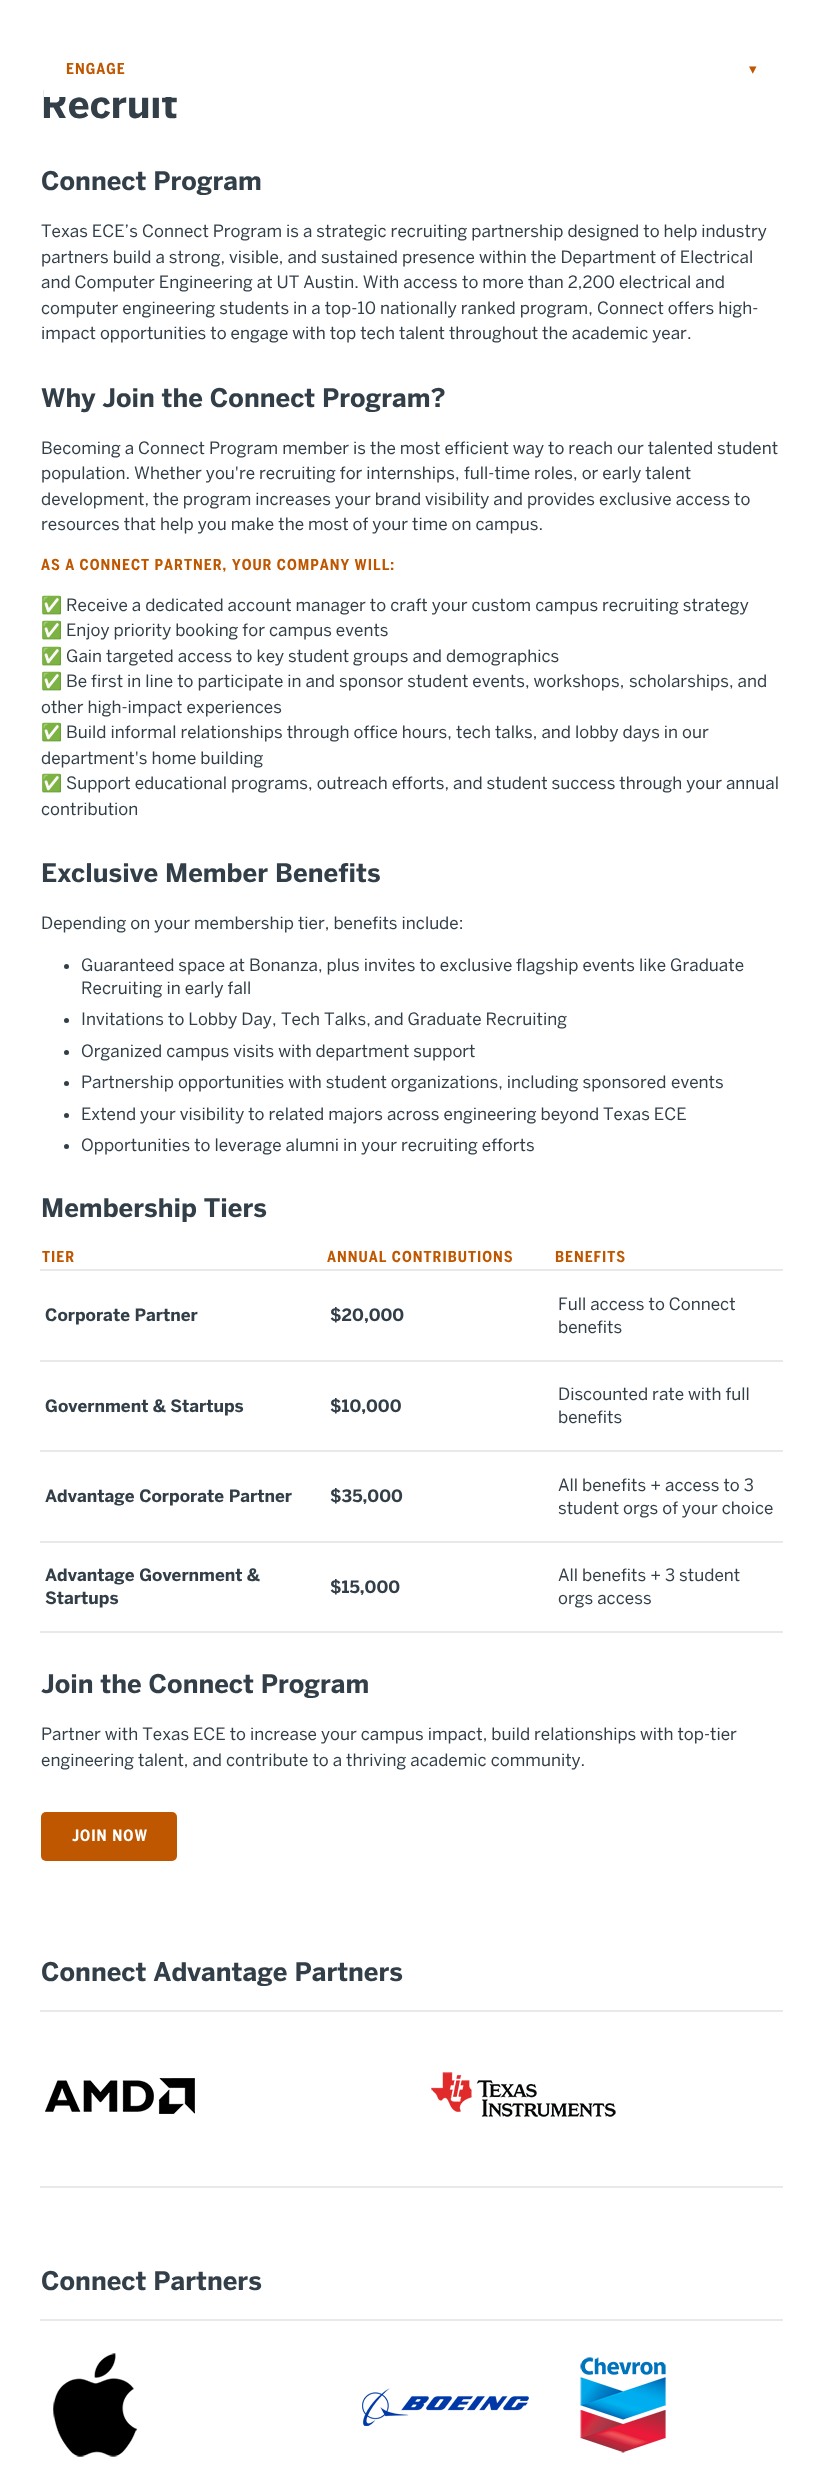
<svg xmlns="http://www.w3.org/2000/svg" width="823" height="2489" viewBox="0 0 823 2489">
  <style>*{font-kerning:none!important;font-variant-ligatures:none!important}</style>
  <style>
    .t1 { font: bold 38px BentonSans; fill: #333f48; }
    .t2 { font: bold 15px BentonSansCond; letter-spacing: 1px; fill: #bf5700; }
    .t3 { font: 15px DejaVu Sans; letter-spacing: 1px; fill: #bf5700; }
    .t4 { font: bold 25.5px BentonSans; fill: #333f48; }
    .t5 { font: 17px BentonSans; fill: #333f48; }
    .t6 { font: 17px Noto Color Emoji; fill: #333f48; }
    .t7 { font: bold 17px BentonSans; fill: #333f48; }
    .t8 { font: bold 15.5px BentonSansCond; letter-spacing: 1px; fill: #fff; }
  </style>
  <rect width="100%" height="100%" fill="#fff"/>
  <text x="41" y="118" class="t1">Recruit</text>
  <rect x="44" y="89" width="129" height="8" fill="#fff"/>
  <text x="66" y="74" class="t2">ENGAGE</text>
  <text x="749" y="74" class="t3">▾</text>
  <text x="41" y="190" class="t4">Connect Program</text>
  <text x="41" y="237" class="t5">Texas ECE’s</text>
  <text x="142" y="237" class="t5">Connect Program is a strategic recruiting partnership designed to help industry</text>
  <text x="41" y="263" class="t5">partners build a strong, visible, and sustained presence</text>
  <text x="479" y="263" class="t5">within the Department of Electrical</text>
  <text x="41" y="288" class="t5">and Computer Engineering at UT Austin. With access</text>
  <text x="462" y="288" class="t5">to more than 2,200 electrical and</text>
  <text x="41" y="314" class="t5">computer engineering students in a top-10 nationally ranked program,</text>
  <text x="597" y="314" class="t5">Connect offers high-</text>
  <text x="41" y="339" class="t5">impact opportunities to engage with top tech talent throughout the academic year.</text>
  <text x="41" y="407" class="t4">Why Join the Connect Program?</text>
  <text x="41" y="454" class="t5">Becoming a Connect Program member is the most efficient way to reach</text>
  <text x="617" y="454" class="t5">our talented student</text>
  <text x="41" y="479" class="t5">population. Whether you're recruiting for internships,</text>
  <text x="464" y="479" class="t5">full-time roles, or early talent</text>
  <text x="41" y="505" class="t5">development, the program increases your brand</text>
  <text x="425" y="505" class="t5">visibility and provides exclusive access</text>
  <text x="734" y="505" class="t5">to</text>
  <text x="41" y="530" class="t5">resources that help you make the most of your</text>
  <text x="412" y="530" class="t5">time on campus.</text>
  <text x="41" y="570" class="t2">AS A CONNECT PARTNER,</text>
  <text x="232" y="570" class="t2">YOUR COMPANY WILL:</text>
  <text x="41" y="611" class="t6">✅</text>
  <text x="66" y="611" class="t5">Receive a dedicated account manager to craft your custom campus</text>
  <text x="602" y="611" class="t5">recruiting strategy</text>
  <text x="41" y="636" class="t6">✅</text>
  <text x="66" y="636" class="t5">Enjoy priority booking for campus events</text>
  <text x="41" y="662" class="t6">✅</text>
  <text x="66" y="662" class="t5">Gain targeted access to key student groups and demographics</text>
  <text x="41" y="687" class="t6">✅</text>
  <text x="66" y="687" class="t5">Be first in line to participate in and sponsor student events, workshops,</text>
  <text x="629" y="687" class="t5">scholarships, and</text>
  <text x="41" y="713" class="t5">other high-impact experiences</text>
  <text x="41" y="738" class="t6">✅</text>
  <text x="66" y="738" class="t5">Build informal relationships through office hours,</text>
  <text x="456" y="738" class="t5">tech talks, and lobby days in our</text>
  <text x="41" y="764" class="t5">department's home building</text>
  <text x="41" y="789" class="t6">✅</text>
  <text x="66" y="789" class="t5">Support educational programs, outreach efforts,</text>
  <text x="453" y="789" class="t5">and student success through your annual</text>
  <text x="41" y="815" class="t5">contribution</text>
  <text x="41" y="882" class="t4">Exclusive Member Benefits</text>
  <text x="41" y="929" class="t5">Depending on your membership tier, benefits include:</text>
  <circle cx="66.5" cy="966.5" r="2.5" fill="#333f48"/>
  <text x="81" y="971" class="t5">Guaranteed space at Bonanza, plus invites to exclusive</text>
  <text x="516" y="971" class="t5">flagship events like Graduate</text>
  <text x="81" y="994" class="t5">Recruiting in early fall</text>
  <circle cx="66.5" cy="1020.5" r="2.5" fill="#333f48"/>
  <text x="81" y="1025" class="t5">Invitations to Lobby Day,</text>
  <text x="281" y="1025" class="t5">Tech Talks,</text>
  <text x="374" y="1025" class="t5">and Graduate Recruiting</text>
  <circle cx="66.5" cy="1052.5" r="2.5" fill="#333f48"/>
  <text x="81" y="1057" class="t5">Organized campus visits with department support</text>
  <circle cx="66.5" cy="1083.5" r="2.5" fill="#333f48"/>
  <text x="81" y="1088" class="t5">Partnership opportunities with student organizations, including sponsored</text>
  <text x="671" y="1088" class="t5">events</text>
  <circle cx="66.5" cy="1115.5" r="2.5" fill="#333f48"/>
  <text x="81" y="1120" class="t5">Extend your visibility to related majors across engineering beyond</text>
  <text x="603" y="1120" class="t5">Texas ECE</text>
  <circle cx="66.5" cy="1146.5" r="2.5" fill="#333f48"/>
  <text x="81" y="1151" class="t5">Opportunities to leverage alumni in your recruiting efforts</text>
  <text x="41" y="1217" class="t4">Membership Tiers</text>
  <text x="42" y="1262" class="t2">TIER</text>
  <text x="327" y="1262" class="t2">ANNUAL CONTRIBUTIONS</text>
  <text x="555" y="1262" class="t2">BENEFITS</text>
  <rect x="40" y="1269" width="743" height="2" fill="#e8e9e9"/>
  <rect x="40" y="1631" width="743" height="2" fill="#e8e9e9"/>
  <text x="45" y="1321" class="t7">Corporate Partner</text>
  <text x="330" y="1321" class="t7">$20,000</text>
  <text x="558" y="1310" class="t5">Full access to Connect</text>
  <text x="558" y="1333" class="t5">benefits</text>
  <rect x="40" y="1360" width="743" height="2" fill="#e8e9e9"/>
  <text x="45" y="1412" class="t7">Government &amp; Startups</text>
  <text x="330" y="1412" class="t7">$10,000</text>
  <text x="558" y="1400" class="t5">Discounted rate with full</text>
  <text x="558" y="1423" class="t5">benefits</text>
  <rect x="40" y="1450" width="743" height="2" fill="#e8e9e9"/>
  <text x="45" y="1502" class="t7">Advantage Corporate Partner</text>
  <text x="330" y="1502" class="t7">$35,000</text>
  <text x="558" y="1491" class="t5">All benefits + access to 3</text>
  <text x="558" y="1514" class="t5">student orgs of your choice</text>
  <rect x="40" y="1541" width="743" height="2" fill="#e8e9e9"/>
  <text x="45" y="1581" class="t7">Advantage Government &amp;</text>
  <text x="45" y="1604" class="t7">Startups</text>
  <text x="330" y="1593" class="t7">$15,000</text>
  <text x="558" y="1581" class="t5">All benefits + 3 student</text>
  <text x="558" y="1604" class="t5">orgs access</text>
  <text x="41" y="1693" class="t4">Join the Connect Program</text>
  <text x="41" y="1740" class="t5">Partner with Texas</text>
  <text x="193" y="1740" class="t5">ECE to increase your campus impact, build relationships</text>
  <text x="640" y="1740" class="t5">with top-tier</text>
  <text x="41" y="1766" class="t5">engineering talent, and contribute to a thriving academic community.</text>
  <rect x="41" y="1812" width="136" height="49" rx="5" fill="#bf5700"/>
  <text x="72" y="1841" class="t8">JOIN NOW</text>
  <text x="41" y="1981" class="t4">Connect Advantage Partners</text>
  <rect x="40" y="2010" width="743" height="2" fill="#e8e9e9"/>
  <rect x="40" y="2186" width="743" height="2" fill="#e8e9e9"/>
  <image x="45" y="2078" width="150" height="36" href="images/1.png"/>
  <image x="431" y="2072" width="185" height="45" href="images/2.png"/>
  <text x="41" y="2290" class="t4">Connect Partners</text>
  <rect x="40" y="2319" width="743" height="2" fill="#e8e9e9"/>
  <image x="53" y="2353" width="84" height="104" href="images/3.png"/>
  <image x="362" y="2388" width="167" height="38" href="images/4.png"/>
  <image x="580" y="2357" width="86" height="96" href="images/5.png"/>
</svg>
